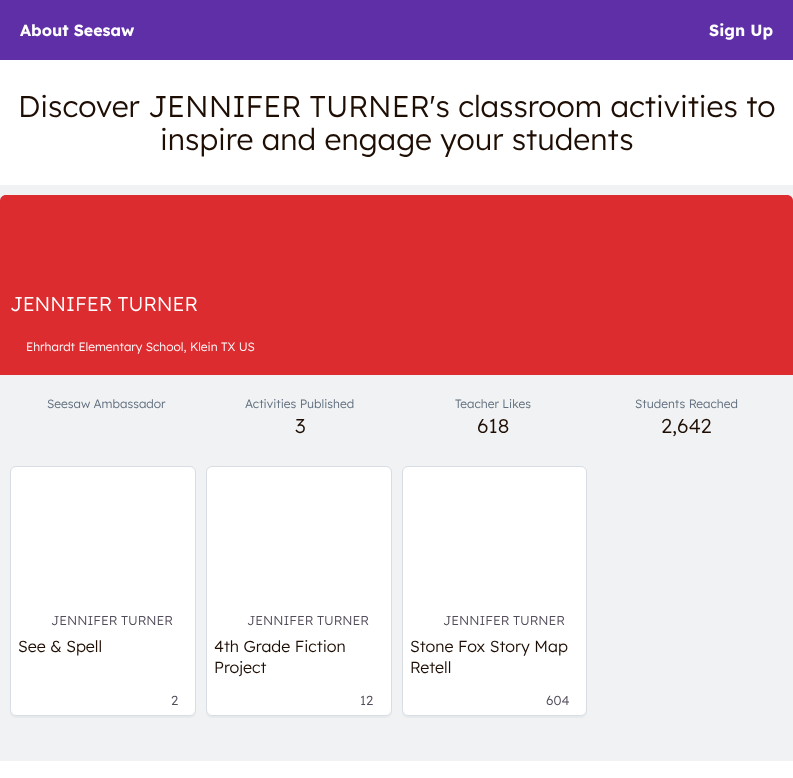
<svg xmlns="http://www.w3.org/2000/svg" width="793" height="778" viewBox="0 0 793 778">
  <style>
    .t1 { font: bold 16px Lexend; fill: #fff; }
    .t2 { font: 300 30px Lexend; fill: #1e0d03; }
    .t3 { font: 300 20px Lexend; fill: #fff; }
    .t4 { font: 300 12px Lexend; fill: #fff; }
    .t5 { font: 300 12px Lexend; fill: #5e6c7c; }
    .t6 { font: 300 20px Lexend; fill: #1e0d03; }
    .t7 { font: 300 13px Lexend; fill: #524b59; }
    .t8 { font: 300 16px Lexend; fill: #1e0d03; }
  </style>
  <rect width="100%" height="100%" fill="#f0f2f3"/>
  <rect x="0" y="0" width="793" height="60" fill="#5f2fa8"/>
  <text x="20" y="36" class="t1">About Seesaw</text>
  <text x="709" y="36" class="t1">Sign Up</text>
  <rect x="0" y="60" width="793" height="125" fill="#fff"/>
  <text x="18" y="117" class="t2">Discover JENNIFER TURNER's classroom activities to</text>
  <text x="160" y="150" class="t2">inspire and engage your students</text>
  <path d="M6 195H787C790.5 195 793 197.5 793 201V375H0V201C0 197.5 2.5 195 6 195Z" fill="#dd2c30"/>
  <text x="10" y="311" class="t3">JENNIFER TURNER</text>
  <text x="26" y="351" class="t4">Ehrhardt Elementary School, Klein TX US</text>
  <text x="47" y="408" class="t5">Seesaw Ambassador</text>
  <text x="245" y="408" class="t5">Activities Published</text>
  <text x="295" y="433" class="t6">3</text>
  <text x="455" y="408" class="t5">Teacher Likes</text>
  <text x="477" y="433" class="t6">618</text>
  <text x="635" y="408" class="t5">Students Reached</text>
  <text x="661" y="433" class="t6">2,642</text>
  <path d="M10 710V712C10 715 13 718 16 718H190C193 718 196 715 196 712V710C196 713 193 716 190 716H16C13 716 10 713 10 710Z" fill="#e6eaed"/>
  <rect x="10.5" y="466.5" width="185" height="249" rx="5.5" fill="#fff" stroke="#d8dde3"/>
  <text x="51" y="625" class="t7">JENNIFER TURNER</text>
  <text x="18" y="652" class="t8">See &amp; Spell</text>
  <text x="171" y="705" class="t7">2</text>
  <path d="M206 710V712C206 715 209 718 212 718H386C389 718 392 715 392 712V710C392 713 389 716 386 716H212C209 716 206 713 206 710Z" fill="#e6eaed"/>
  <rect x="206.5" y="466.5" width="185" height="249" rx="5.5" fill="#fff" stroke="#d8dde3"/>
  <text x="247" y="625" class="t7">JENNIFER TURNER</text>
  <text x="214" y="652" class="t8">4th Grade Fiction</text>
  <text x="214" y="673" class="t8">Project</text>
  <text x="360" y="705" class="t7">12</text>
  <path d="M402 710V712C402 715 405 718 408 718H581C584 718 587 715 587 712V710C587 713 584 716 581 716H408C405 716 402 713 402 710Z" fill="#e6eaed"/>
  <rect x="402.5" y="466.5" width="184" height="249" rx="5.5" fill="#fff" stroke="#d8dde3"/>
  <text x="443" y="625" class="t7">JENNIFER TURNER</text>
  <text x="410" y="652" class="t8">Stone Fox Story Map</text>
  <text x="410" y="673" class="t8">Retell</text>
  <text x="546" y="705" class="t7">604</text>
  <rect x="0" y="761" width="793" height="17" fill="#fff"/>
</svg>
